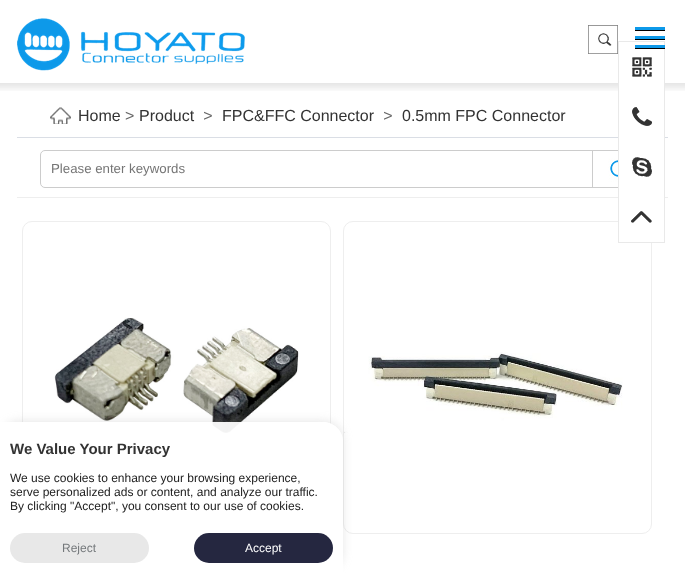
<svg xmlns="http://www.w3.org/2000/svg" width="685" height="573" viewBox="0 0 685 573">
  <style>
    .t1 { font: 16px Liberation Sans; fill: #333; }
    .t2 { font: 16px Liberation Sans; fill: #666; }
    .t3 { font: italic 16px Liberation Sans; fill: #666; }
    .t4 { font: 13.25px Liberation Sans; fill: #757575; }
    .t5 { font: bold 15px Liberation Sans; fill: #333; }
    .t6 { font: 12px Liberation Sans; fill: #212121; }
    .t7 { font: 12px Liberation Sans; fill: #74787b; }
    .t8 { font: 12px Liberation Sans; fill: #fff; }
  </style>
  <defs>
    <clipPath id="clip1"><path d="M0 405H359V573H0ZM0 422H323C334 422 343 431 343 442V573H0Z" clip-rule="evenodd"/></clipPath>
  </defs>
  <rect width="100%" height="100%" fill="#fff"/>
  <image x="17" y="18" width="228" height="53" href="images/1.png"/>
  <image x="588" y="25" width="30" height="29" href="images/2.png"/>
  <rect x="635" y="28" width="30" height="3" fill="#000" filter="blur(0.5px)"/>
  <rect x="635" y="27" width="30" height="3" fill="#0d99e9"/>
  <image x="0" y="83" width="685" height="8" href="images/3.png"/>
  <rect x="17" y="137" width="651" height="1" fill="#dadee5"/>
  <rect x="17" y="197" width="651" height="1" fill="#eee"/>
  <rect x="40.5" y="150.5" width="604" height="37" rx="4.5" fill="none" stroke="#ccc"/>
  <rect x="343.5" y="221.5" width="308" height="312" rx="9.5" fill="none" stroke="#eee"/>
  <rect x="619" y="83" width="45" height="159" fill="#fff"/>
  <rect x="618.5" y="41.5" width="46" height="201" fill="none" stroke="#e9e9e9"/>
  <rect x="635" y="37" width="30" height="3" fill="#000" filter="blur(0.5px)"/>
  <rect x="635" y="36" width="30" height="3" fill="#0d99e9"/>
  <rect x="635" y="46" width="30" height="3" fill="#000" filter="blur(0.5px)"/>
  <rect x="635" y="45" width="30" height="3" fill="#0d99e9"/>
  <image x="50" y="107" width="21" height="17" href="images/4.png"/>
  <text x="78" y="121" class="t1">Home</text>
  <text x="125" y="121" class="t2">&gt;</text>
  <text x="139" y="121" class="t1">Product</text>
  <text x="203" y="121" class="t3">&gt;</text>
  <text x="222" y="121" class="t1">FPC&amp;FFC Connector</text>
  <text x="383" y="121" class="t3">&gt;</text>
  <text x="402" y="121" class="t1">0.5mm FPC Connector</text>
  <image x="632" y="57" width="20" height="20" href="images/5.png"/>
  <image x="632" y="107" width="20" height="19" href="images/6.png"/>
  <image x="632" y="157" width="20" height="20" href="images/7.png"/>
  <image x="631" y="211" width="21" height="12" href="images/8.png"/>
  <text x="51" y="173" class="t4">Please enter keywords</text>
  <image x="592" y="151" width="26" height="36" href="images/9.png"/>
  <rect x="22.5" y="221.5" width="308" height="312" rx="9.5" fill="none" stroke="#eee"/>
  <image x="54" y="317" width="245" height="116" href="images/10.png"/>
  <image x="344" y="352" width="279" height="81" href="images/11.png"/>
  <g clip-path="url(#clip1)">
    <rect x="0" y="421" width="343" height="151" rx="20" fill="#acabab4d" filter="blur(5px)"/>
  </g>
  <path d="M0 422H323C334 422 343 431 343 442V573H0Z" fill="#fffffff2"/>
  <text x="10" y="454" class="t5">We Value Your Privacy</text>
  <text x="10" y="482" class="t6">We use cookies to enhance your browsing experience,</text>
  <text x="10" y="496" class="t6">serve personalized ads or content, and analyze our traffic.</text>
  <text x="10" y="510" class="t6">By clicking "Accept", you consent to our use of cookies.</text>
  <rect x="10" y="533" width="139" height="30" rx="15" fill="#e8e8e8"/>
  <text x="62" y="552" class="t7">Reject</text>
  <rect x="194" y="533" width="139" height="30" rx="15" fill="#252740"/>
  <text x="245" y="552" class="t8">Accept</text>
</svg>
